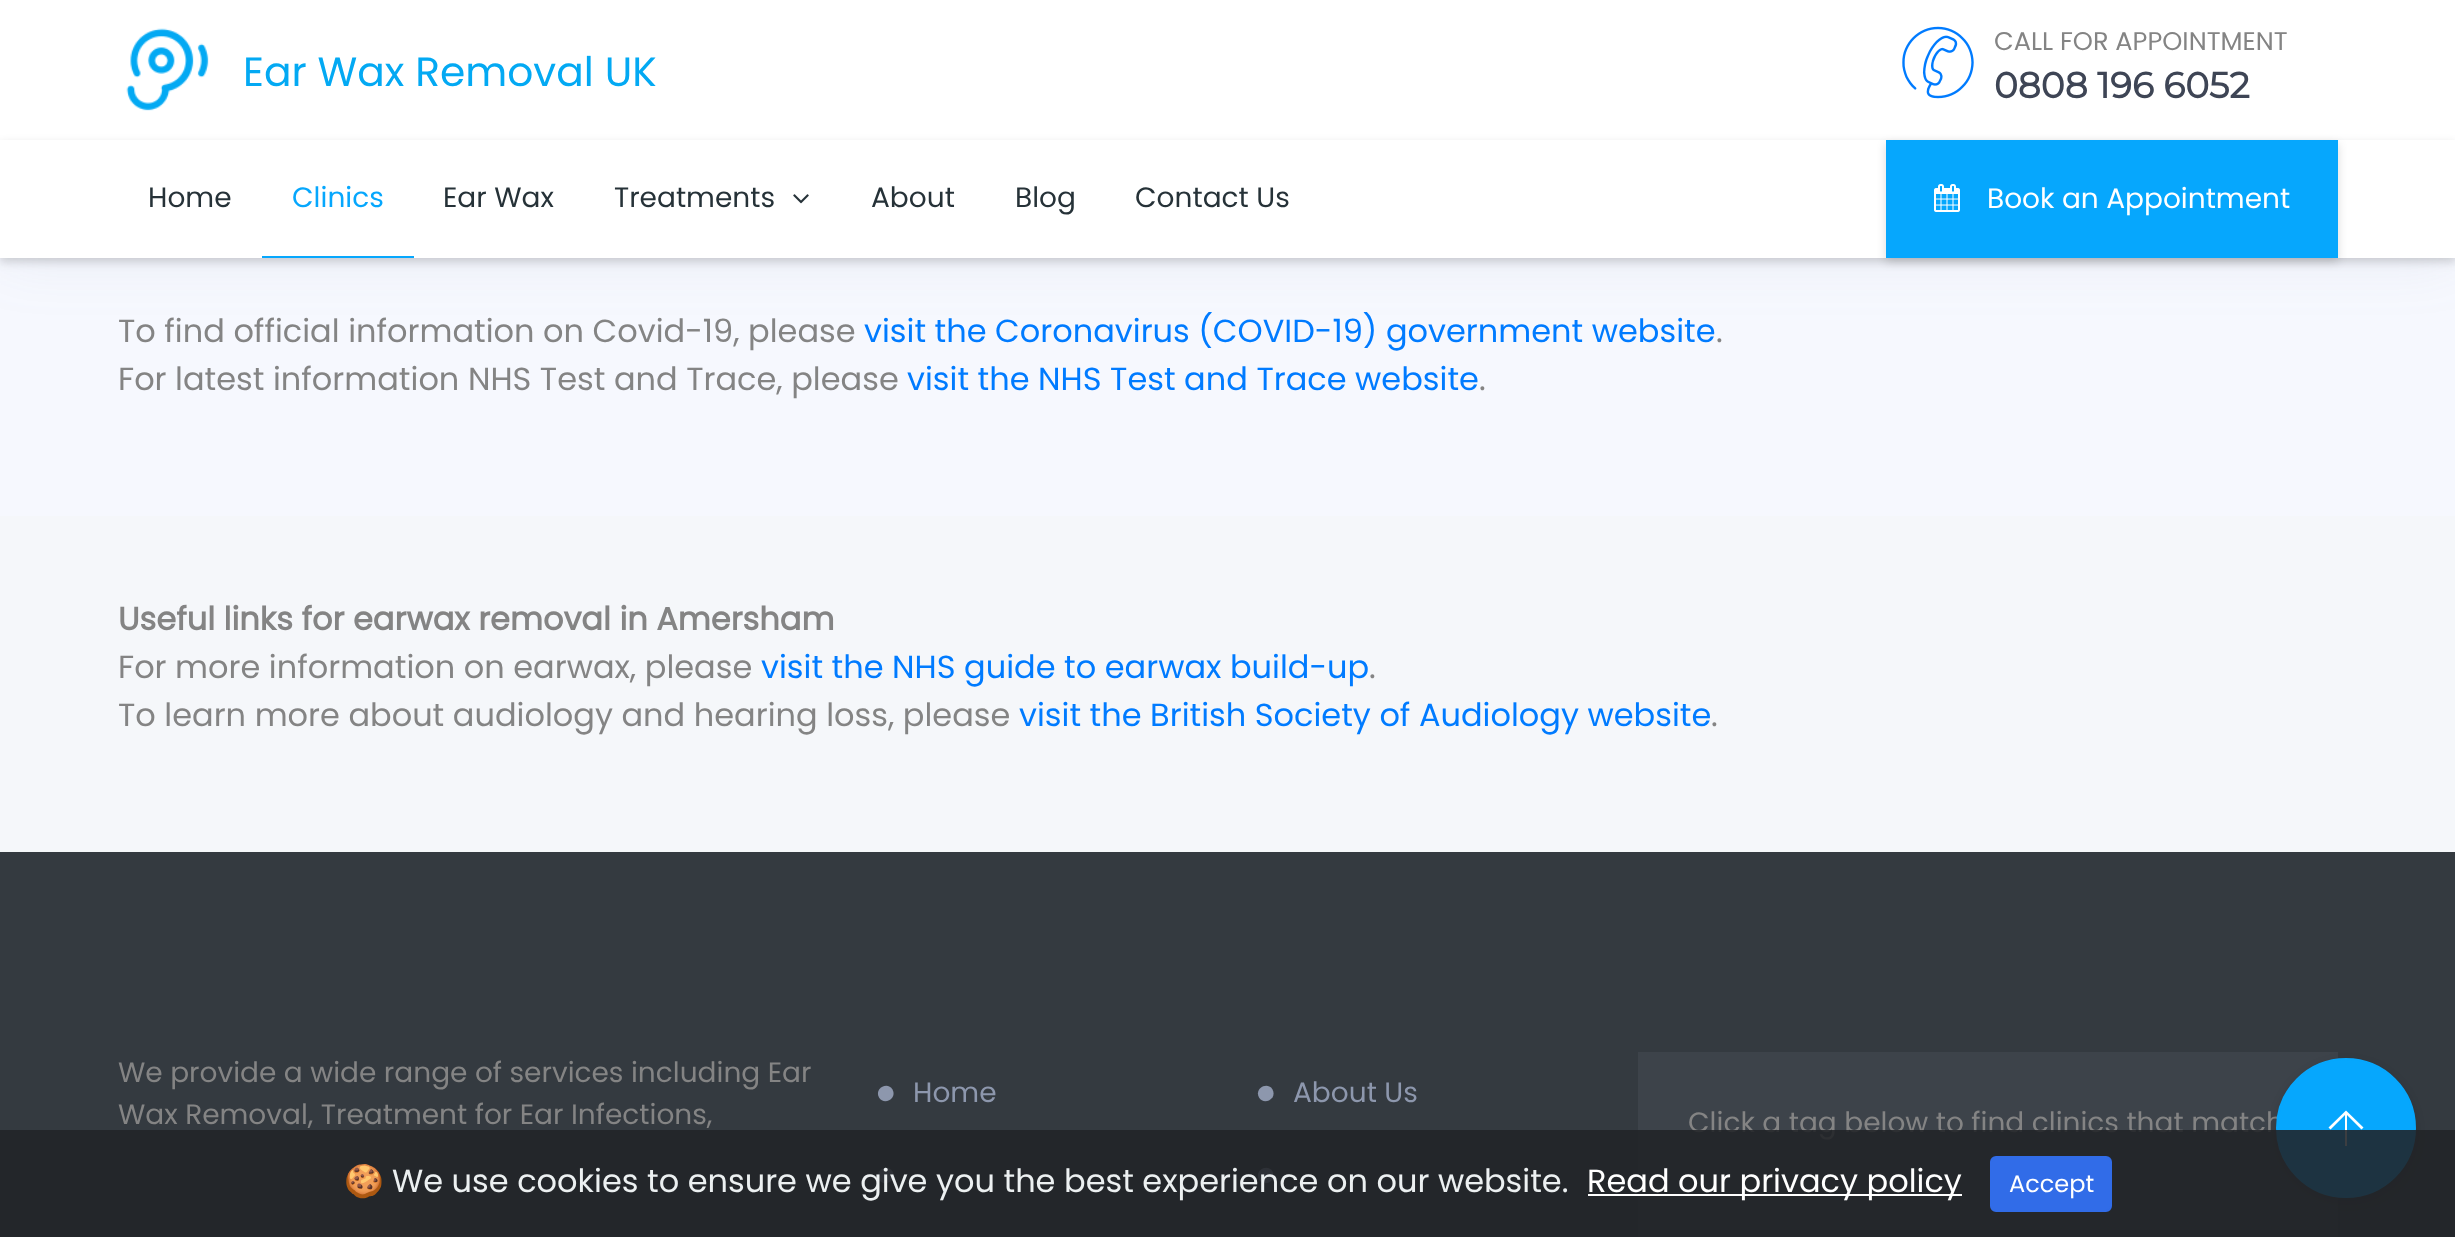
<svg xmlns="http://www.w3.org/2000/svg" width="2455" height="1237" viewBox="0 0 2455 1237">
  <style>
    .t1 { font: 40.75px Poppins; fill: #03a9f3; }
    .t2 { font: 25.6px Poppins; fill: #848484; }
    .t3 { font: bold 36px Montserrat; fill: #3e4555; }
    .t4 { font: 28px Poppins; fill: #263238; }
    .t5 { font: 28px Poppins; fill: #06a7fd; }
    .t6 { font: 28px Poppins; fill: #fff; }
    .t7 { font: 32px Poppins; fill: #848484; }
    .t8 { font: 32px Poppins; fill: #007bff; }
    .t9 { font: bold 32px Poppins; fill: #848484; }
    .t10 { font: 28px Poppins; fill: #848484; }
    .t11 { font: 28px Poppins; fill: #8d97ad; }
    .t12 { font: 32px Noto Color Emoji; fill: #ecf0f1; }
    .t13 { font: 32px Poppins; fill: #ecf0f1; }
    .t14 { font: 32px Poppins; fill: #fff; }
    .t15 { font: 24px Poppins; fill: #fff; }
  </style>
  <defs>
    <clipPath id="clip1"><path d="M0 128H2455V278H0ZM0 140H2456V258H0Z" clip-rule="evenodd"/></clipPath>
  </defs>
  <rect width="100%" height="100%" fill="#f6f8fe"/>
  <rect x="0" y="0" width="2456" height="258" fill="#73809d1a" filter="blur(30px)"/>
  <rect x="0" y="0" width="2455" height="258" fill="#fff"/>
  <image x="126" y="28" width="83" height="83" href="images/1.png"/>
  <text x="243" y="86" class="t1">Ear Wax Removal UK</text>
  <image x="1902" y="26" width="72" height="73" href="images/2.png"/>
  <text x="1994" y="50" class="t2">CALL FOR APPOINTMENT</text>
  <text x="1994" y="98" class="t3">0808 196 6052</text>
  <g clip-path="url(#clip1)">
    <rect x="0" y="144" width="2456" height="118" fill="#00000029" filter="blur(5px)"/>
  </g>
  <text x="148" y="207" class="t4">Home</text>
  <rect x="262" y="256" width="152" height="2" fill="#06a7fd"/>
  <text x="292" y="207" class="t5">Clinics</text>
  <text x="443" y="207" class="t4">Ear Wax</text>
  <text x="614" y="207" class="t4">Treatments</text>
  <image x="793" y="194" width="16" height="10" href="images/3.png"/>
  <text x="871" y="207" class="t4">About</text>
  <text x="1015" y="207" class="t4">Blog</text>
  <text x="1135" y="207" class="t4">Contact Us</text>
  <rect x="1886" y="144" width="452" height="118" fill="#00000024" filter="blur(5px)"/>
  <rect x="1886" y="140" width="452" height="118" fill="#06a7fd"/>
  <image x="1934" y="184" width="26" height="28" href="images/4.png"/>
  <text x="1987" y="208" class="t6">Book an Appointment</text>
  <text x="118" y="342" class="t7">To find official information on Covid-19, please</text>
  <text x="864" y="342" class="t8">visit the Coronavirus (COVID-19) government website</text>
  <text x="1716" y="342" class="t7">.</text>
  <text x="118" y="390" class="t7">For latest information NHS Test and Trace, please</text>
  <text x="907" y="390" class="t8">visit the NHS Test and Trace website</text>
  <text x="1479" y="390" class="t7">.</text>
  <rect x="0" y="516" width="2455" height="336" fill="#f5f7fa"/>
  <text x="118" y="630" class="t9">Useful links for earwax removal in Amersham</text>
  <text x="118" y="678" class="t7">For more information on earwax, please</text>
  <text x="761" y="678" class="t8">visit the NHS guide to earwax build-up</text>
  <text x="1369" y="678" class="t7">.</text>
  <text x="118" y="726" class="t7">To learn more about audiology and hearing loss, please</text>
  <text x="1019" y="726" class="t8">visit the British Society of Audiology website</text>
  <text x="1711" y="726" class="t7">.</text>
  <rect x="0" y="852" width="2455" height="385" fill="#343a40"/>
  <text x="118" y="1082" class="t10">We provide a wide range of services including Ear</text>
  <text x="118" y="1124" class="t10">Wax Removal, Treatment for Ear Infections,</text>
  <path d="M892.5 1089.5C897.5 1098.5 884 1106 879 1097.5C874 1088.5 887.5 1081 892.5 1089.5Z" fill="#8d97ad"/>
  <text x="913" y="1102" class="t11">Home</text>
  <path d="M892.5 1171.5C897.5 1180.5 884 1188 879 1179.5C874 1170.5 887.5 1163 892.5 1171.5Z" fill="#8d97ad"/>
  <path d="M1272.5 1089.5C1277.5 1098.5 1264 1106 1259 1097.5C1254 1088.5 1267.5 1081 1272.5 1089.5Z" fill="#8d97ad"/>
  <text x="1293" y="1102" class="t11">About Us</text>
  <path d="M1272.5 1171.5C1277.5 1180.5 1264 1188 1259 1179.5C1254 1170.5 1267.5 1163 1272.5 1171.5Z" fill="#8d97ad"/>
  <rect x="1638" y="1052" width="700" height="185" fill="#3d434a"/>
  <text x="1688" y="1132" class="t10">Click a tag below to find clinics that match</text>
  <rect x="2276" y="1062" width="140" height="140" rx="70" fill="#00000024" filter="blur(5px)"/>
  <circle cx="2346" cy="1128" r="69" fill="#06a7fd" stroke="#06a7fd" stroke-width="2"/>
  <path d="M2361.5 1129.5L2347 1115V1146H2345V1115L2330.5 1129.5L2328.5 1127.5L2346 1110.5L2363.5 1127.5Z" fill="#fff"/>
  <rect x="0" y="1130" width="2455" height="107" fill="#212327e0"/>
  <text x="344" y="1192" class="t12">🍪</text>
  <text x="392" y="1192" class="t13">We use cookies to ensure we give you the best experience on our website.</text>
  <rect x="1588" y="1194" width="374" height="2" fill="#fff"/>
  <text x="1587" y="1192" class="t14">Read our privacy policy</text>
  <rect x="1991" y="1157" width="120" height="54" rx="5" fill="#316ce8" stroke="#316ce8" stroke-width="2"/>
  <text x="2009" y="1192" class="t15">Accept</text>
</svg>
